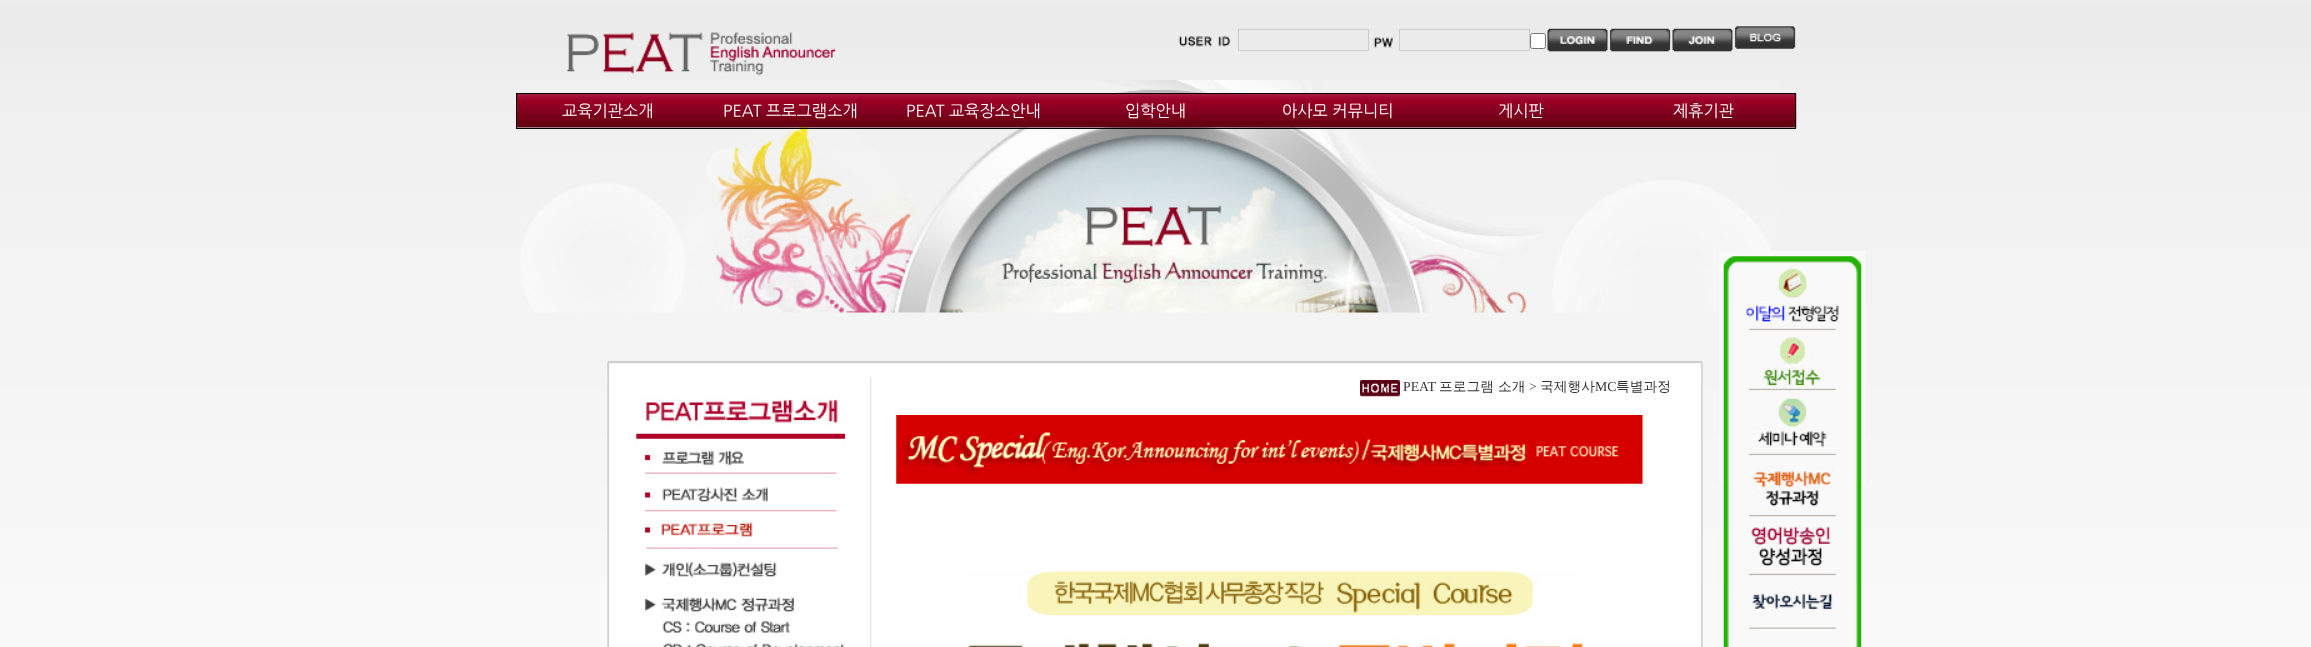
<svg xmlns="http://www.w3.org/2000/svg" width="2311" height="647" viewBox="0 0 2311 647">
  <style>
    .t1 { font: 16.25px NanumGothic; fill: #fff; }
    .t2 { font: 13.75px Liberation Serif; fill: #333; }
    .t3 { font: 500 13.75px WenQuanYi Zen Hei; fill: #333; }
  </style>
  <rect width="100%" height="100%" fill="#fff"/>
  <image x="0" y="0" width="2311" height="647" href="images/2.png"/>
  <image x="520" y="80" width="1260" height="233" href="images/1.png"/>
  <image x="566" y="32" width="271" height="44" href="images/3.png"/>
  <image x="1178" y="36" width="53" height="11" href="images/4.png"/>
  <rect x="1238.5" y="29.5" width="130" height="21" fill="none" stroke="#cdcdcd"/>
  <image x="1373" y="37" width="20" height="11" href="images/5.png"/>
  <rect x="1399.5" y="29.5" width="130" height="21" fill="none" stroke="#cdcdcd"/>
  <rect x="1530.5" y="33.5" width="15" height="15" rx="2" fill="#fff" stroke="#767676"/>
  <image x="1547" y="28" width="61" height="24" href="images/6.png"/>
  <image x="1609" y="28" width="62" height="24" href="images/7.png"/>
  <image x="1672" y="28" width="61" height="24" href="images/8.png"/>
  <image x="1734" y="26" width="62" height="23" href="images/9.png"/>
  <image x="517" y="93" width="1280" height="35" href="images/10.png"/>
  <rect x="516.5" y="93.5" width="1279" height="35" fill="none" stroke="#000"/>
  <text x="562" y="116" class="t1">교육기관소개</text>
  <text x="723" y="116" class="t1">PEAT 프로그램소개</text>
  <text x="906" y="116" class="t1">PEAT 교육장소안내</text>
  <text x="1125" y="116" class="t1">입학안내</text>
  <text x="1282" y="116" class="t1">아사모 커뮤니티</text>
  <text x="1498" y="116" class="t1">게시판</text>
  <text x="1673" y="116" class="t1">제휴기관</text>
  <image x="607" y="377" width="1096" height="270" href="images/12.png"/>
  <image x="870" y="377" width="2" height="270" href="images/13.png"/>
  <image x="607" y="361" width="1096" height="17" href="images/11.png"/>
  <image x="1360" y="380" width="40" height="17" href="images/14.png"/>
  <text x="1403" y="391" class="t2">PEAT</text>
  <text x="1439" y="391" class="t3">프로그램 소개</text>
  <text x="1529" y="391" class="t2">&gt;</text>
  <text x="1540" y="391" class="t3">국제행사</text>
  <text x="1595" y="391" class="t2">MC</text>
  <text x="1616" y="391" class="t3">특별과정</text>
  <image x="896" y="415" width="747" height="69" href="images/15.png"/>
  <image x="968" y="570" width="615" height="77" href="images/16.png"/>
  <image x="634" y="398" width="212" height="249" href="images/17.png"/>
  <rect x="1719" y="251" width="147" height="233" fill="#f9f9f9"/>
  <image x="1723" y="256" width="139" height="391" href="images/18.png"/>
</svg>
